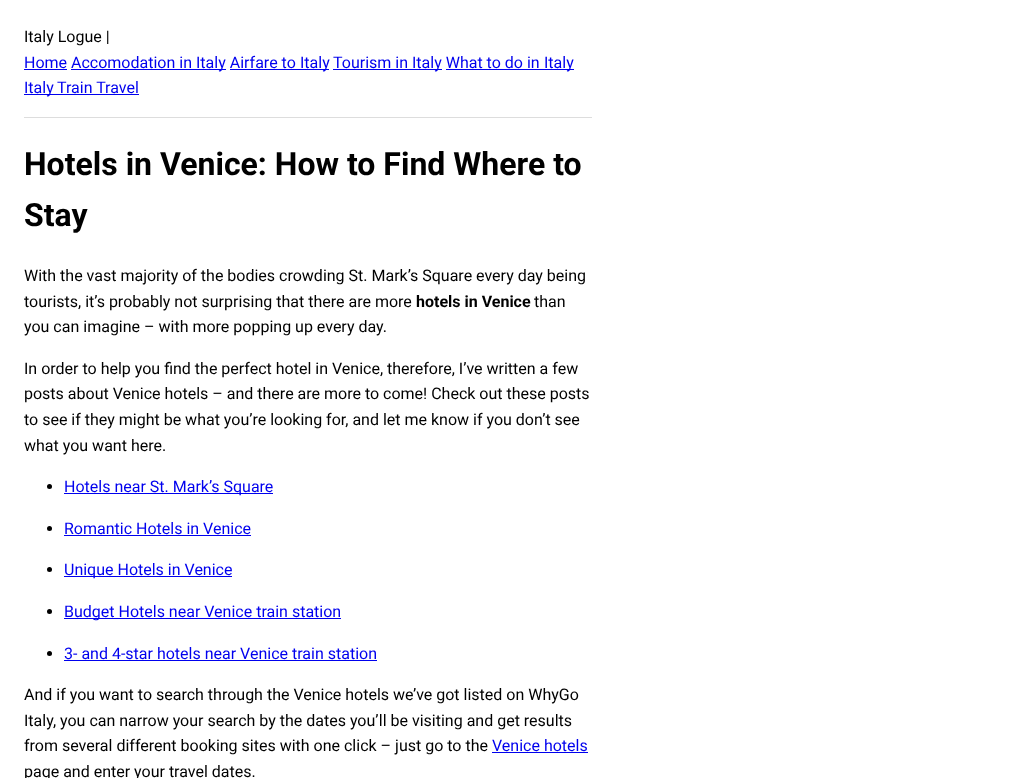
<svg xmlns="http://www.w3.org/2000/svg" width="1032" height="778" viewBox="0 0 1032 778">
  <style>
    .t1 { font: 16px Roboto; fill: #000; }
    .t2 { font: 16px Roboto; fill: #00e; }
    .t3 { font: bold 32px Roboto; fill: #000; }
    .t4 { font: bold 16px Roboto; fill: #000; }
  </style>
  <rect width="100%" height="100%" fill="#fff"/>
  <text x="24" y="42" class="t1">Italy Logue |</text>
  <text x="24" y="68" class="t2">Home Accomodation in</text>
  <rect x="24" y="69" width="43" height="1" fill="#00e"/>
  <rect x="71" y="69" width="155" height="1" fill="#00e"/>
  <text x="196" y="68" class="t2">Italy Airfare to</text>
  <rect x="230" y="69" width="99" height="1" fill="#00e"/>
  <text x="300" y="68" class="t2">Italy</text>
  <rect x="333" y="69" width="109" height="1" fill="#00e"/>
  <text x="333" y="68" class="t2">Tourism in Italy What to do in</text>
  <rect x="446" y="69" width="128" height="1" fill="#00e"/>
  <text x="544" y="68" class="t2">Italy</text>
  <rect x="24" y="94" width="115" height="1" fill="#00e"/>
  <text x="24" y="93" class="t2">Italy</text>
  <text x="57" y="93" class="t2">Train Travel</text>
  <rect x="24" y="117" width="568" height="1" fill="#ddd"/>
  <text x="24" y="175" class="t3">Hotels in Venice: How to Find Where to</text>
  <text x="24" y="226" class="t3">Stay</text>
  <text x="24" y="281" class="t1">With the vast majority of the bodies crowding St. Mark’s Square every day being</text>
  <text x="24" y="307" class="t1">tourists, it’s probably not surprising that there are more</text>
  <text x="416" y="307" class="t4">hotels in Venice</text>
  <text x="534" y="307" class="t1">than</text>
  <text x="24" y="332" class="t1">you can imagine – with more popping up every day.</text>
  <text x="24" y="374" class="t1">In order to help you find the perfect hotel in Venice, therefore, I’ve written a few</text>
  <text x="24" y="399" class="t1">posts about Venice hotels – and there are more to come! Check out these posts</text>
  <text x="24" y="425" class="t1">to see if they might be what you’re looking for, and let me know if you don’t see</text>
  <text x="24" y="451" class="t1">what you want here.</text>
  <circle cx="49.5" cy="486.5" r="2.5" fill="#000"/>
  <rect x="64" y="493" width="209" height="1" fill="#00e"/>
  <text x="64" y="492" class="t2">Hotels near St. Mark’s Square</text>
  <circle cx="49.5" cy="528.5" r="2.5" fill="#000"/>
  <text x="64" y="534" class="t2">Romantic Hotels in Venice</text>
  <rect x="64" y="535" width="187" height="1" fill="#00e"/>
  <circle cx="49.5" cy="569.5" r="2.5" fill="#000"/>
  <rect x="64" y="576" width="168" height="1" fill="#00e"/>
  <text x="64" y="575" class="t2">Unique Hotels in Venice</text>
  <circle cx="49.5" cy="611.5" r="2.5" fill="#000"/>
  <rect x="64" y="618" width="277" height="1" fill="#00e"/>
  <text x="64" y="617" class="t2">Budget Hotels near Venice train station</text>
  <circle cx="49.5" cy="653.5" r="2.5" fill="#000"/>
  <text x="64" y="659" class="t2">3- and 4-star hotels near Venice train station</text>
  <rect x="64" y="660" width="313" height="1" fill="#00e"/>
  <text x="24" y="700" class="t1">And if you want to search through the Venice hotels we’ve got listed on WhyGo</text>
  <text x="24" y="726" class="t1">Italy, you can narrow your search by the dates you’ll be visiting and get results</text>
  <text x="24" y="751" class="t1">from several different booking sites with one click – just go to the</text>
  <text x="492" y="751" class="t2">Venice hotels</text>
  <rect x="492" y="752" width="96" height="1" fill="#00e"/>
  <text x="24" y="777" class="t1">page and enter your travel dates.</text>
</svg>
